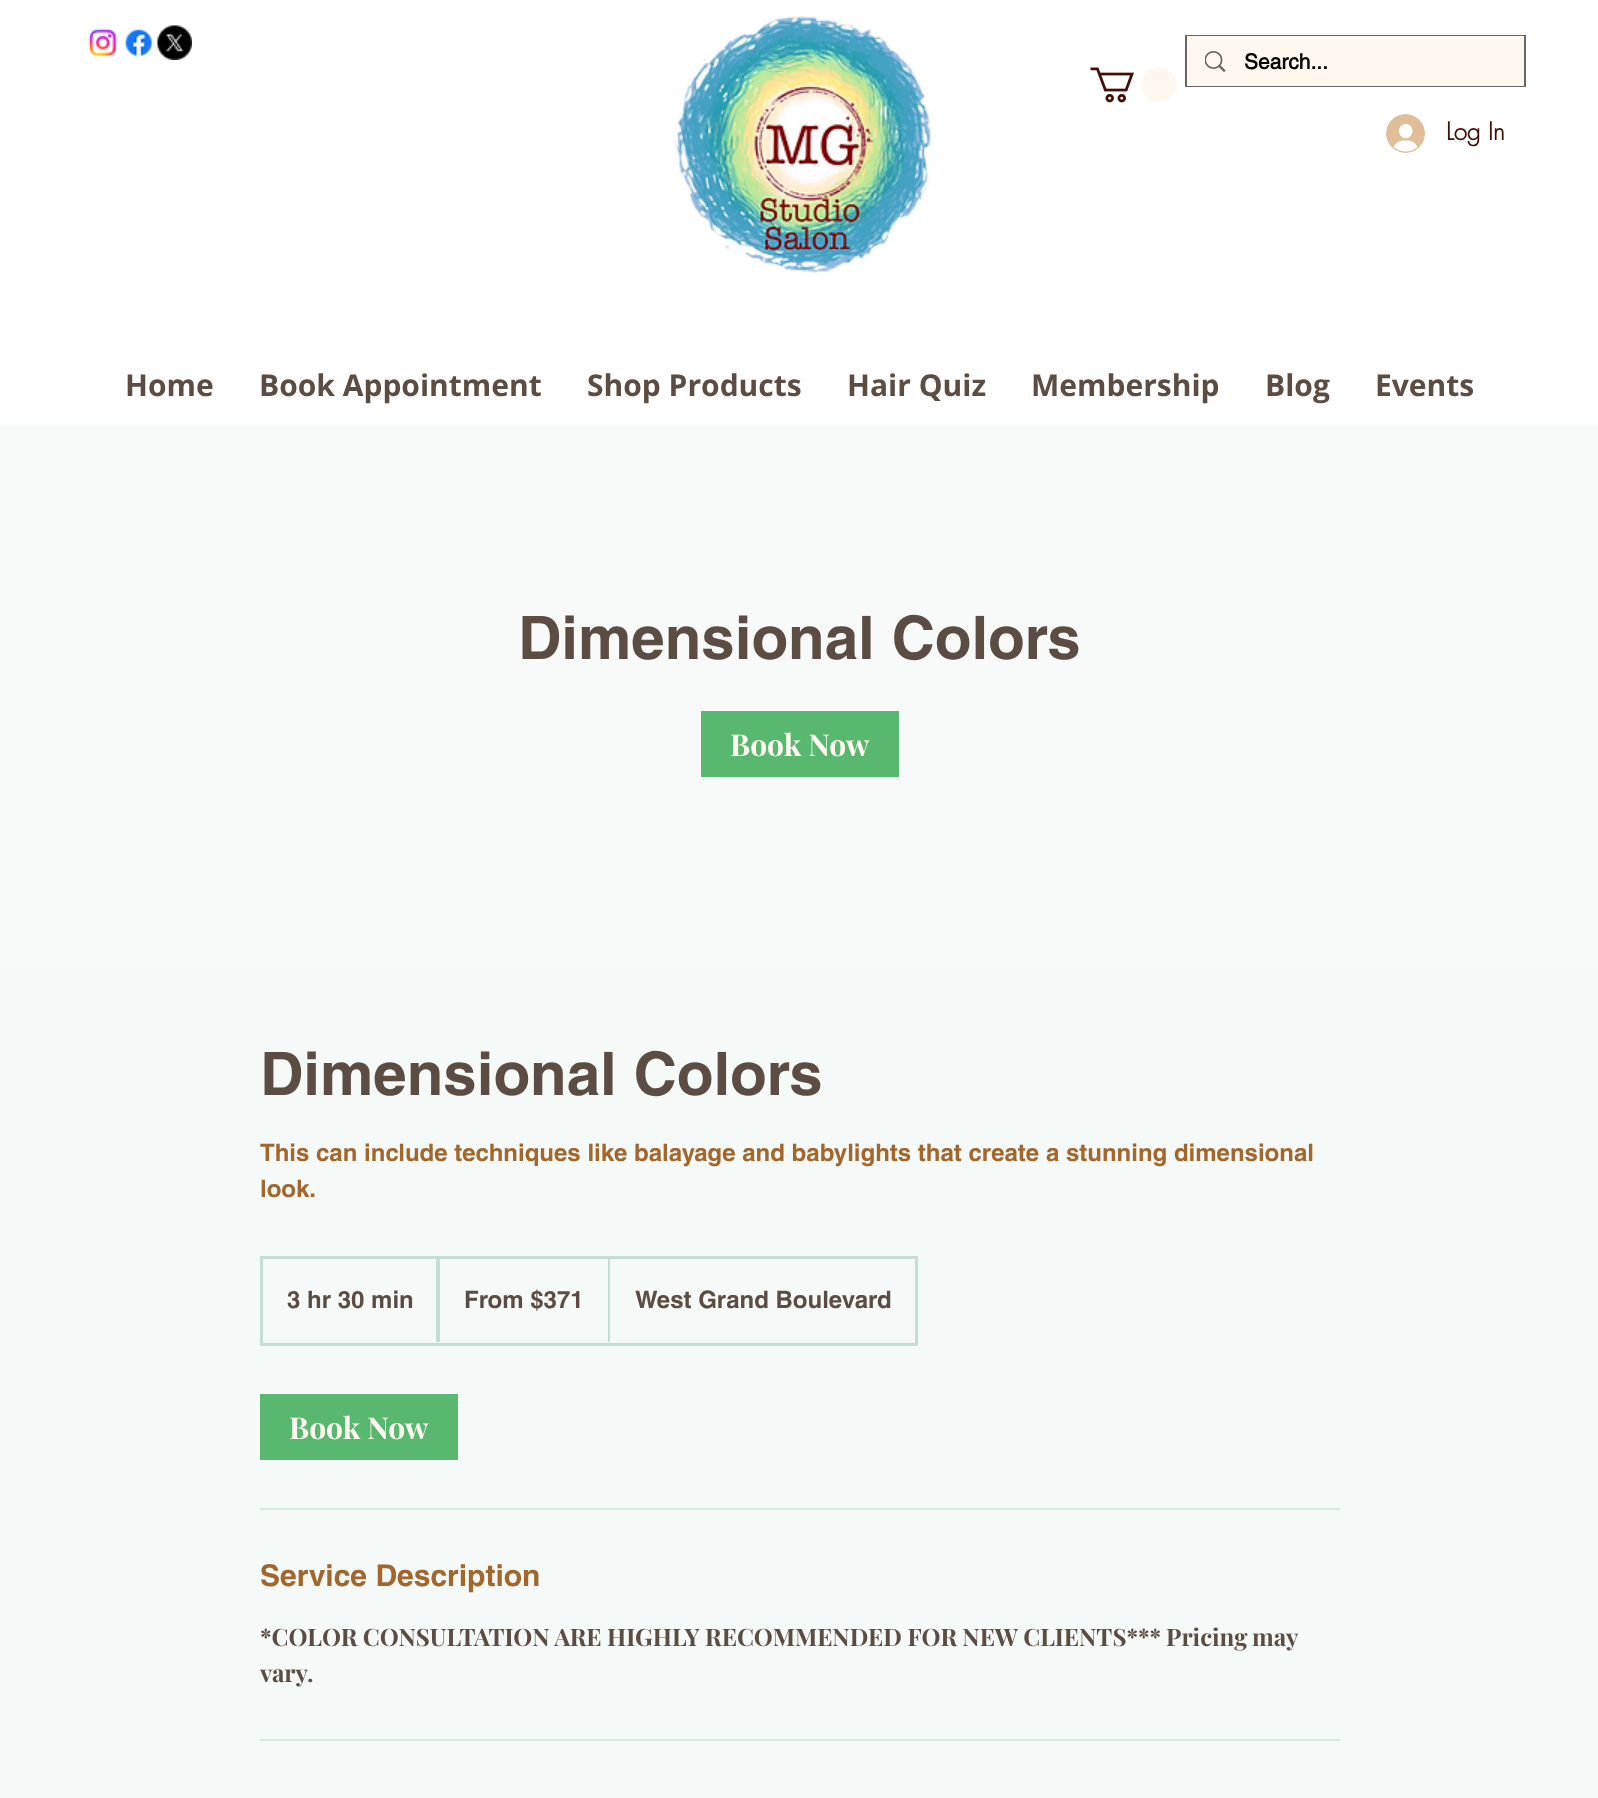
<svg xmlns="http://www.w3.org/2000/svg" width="1598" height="1798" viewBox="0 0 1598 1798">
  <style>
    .t1 { font: bold 21px 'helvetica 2'; fill: #000; }
    .t2 { font: bold 24px futura; fill: #420f07; }
    .t3 { font: bold 30px Open Sans; fill: #5b4d43; }
    .t4 { font: bold 60px helvetica; fill: #5b4d43; }
    .t5 { font: bold 30px Playfair Display; fill: #fff8f1; }
    .t6 { font: bold 24px helvetica; fill: #a2672d; }
    .t7 { font: bold 24px helvetica; fill: #5b4d43; }
    .t8 { font: bold 30px helvetica; fill: #a2672d; }
    .t9 { font: bold 24px Playfair Display; fill: #5b4d43; }
  </style>
  <defs>
    <clipPath id="clip1"><rect x="263" y="1259" width="652" height="84"/></clipPath>
  </defs>
  <rect width="100%" height="100%" fill="#fff"/>
  <image x="88" y="28" width="30" height="29" href="images/1.png"/>
  <image x="124" y="28" width="29" height="28" href="images/2.png"/>
  <image x="157" y="25" width="35" height="35" href="images/3.png"/>
  <image x="674" y="16" width="258" height="258" href="images/4.png"/>
  <rect x="1186" y="36" width="339" height="50" fill="none" stroke="#666" stroke-width="2"/>
  <rect x="1187" y="36" width="337" height="50" fill="#fff8f1"/>
  <image x="1205" y="51" width="21" height="21" href="images/5.png"/>
  <text x="1244" y="69" class="t1">Search...</text>
  <image x="1090" y="67" width="86" height="36" href="images/6.png"/>
  <image x="1386" y="114" width="39" height="39" href="images/7.png"/>
  <text x="1446" y="140" class="t2">Log In</text>
  <text x="125" y="396" class="t3">Home</text>
  <text x="259" y="396" class="t3">Book Appointment</text>
  <text x="587" y="396" class="t3">Shop Products</text>
  <text x="847" y="396" class="t3">Hair Quiz</text>
  <text x="1031" y="396" class="t3">Membership</text>
  <text x="1265" y="396" class="t3">Blog</text>
  <text x="1375" y="396" class="t3">Events</text>
  <rect x="0" y="425" width="1598" height="540" fill="#f7faf9"/>
  <text x="518" y="659" class="t4">Dimensional Colors</text>
  <rect x="701" y="711" width="198" height="66" fill="#58b86f"/>
  <text x="730" y="756" class="t5">Book Now</text>
  <rect x="0" y="965" width="1598" height="833" fill="#f5f9f7"/>
  <text x="260" y="1095" class="t4">Dimensional Colors</text>
  <text x="260" y="1161" class="t6">This can include techniques like balayage and babylights that create a stunning dimensional</text>
  <text x="260" y="1197" class="t6">look.</text>
  <rect x="261.5" y="1257.5" width="655" height="87" fill="none" stroke="#c5ddd4" stroke-width="3"/>
  <text x="287" y="1308" class="t7">3 hr 30 min</text>
  <g clip-path="url(#clip1)">
    <path d="M436 1342V1256L440 1258V1342Z" fill="#c5ddd4"/>
  </g>
  <text x="464" y="1308" class="t7">From $371</text>
  <g clip-path="url(#clip1)">
    <path d="M608 1342V1256L610 1258V1342Z" fill="#c5ddd4"/>
  </g>
  <text x="635" y="1308" class="t7">West Grand Boulevard</text>
  <rect x="260" y="1394" width="198" height="66" fill="#58b86f"/>
  <text x="289" y="1439" class="t5">Book Now</text>
  <rect x="260" y="1508" width="1080" height="2" fill="#d6ecdc"/>
  <text x="260" y="1586" class="t8">Service Description</text>
  <text x="260" y="1646" class="t9">*COLOR CONSULTATION ARE HIGHLY RECOMMENDED FOR NEW CLIENTS***</text>
  <text x="1166" y="1646" word-spacing="-1" class="t9">Pricing may</text>
  <text x="260" y="1682" class="t9">vary.</text>
  <rect x="260" y="1739" width="1080" height="2" fill="#d6ecdc"/>
</svg>
